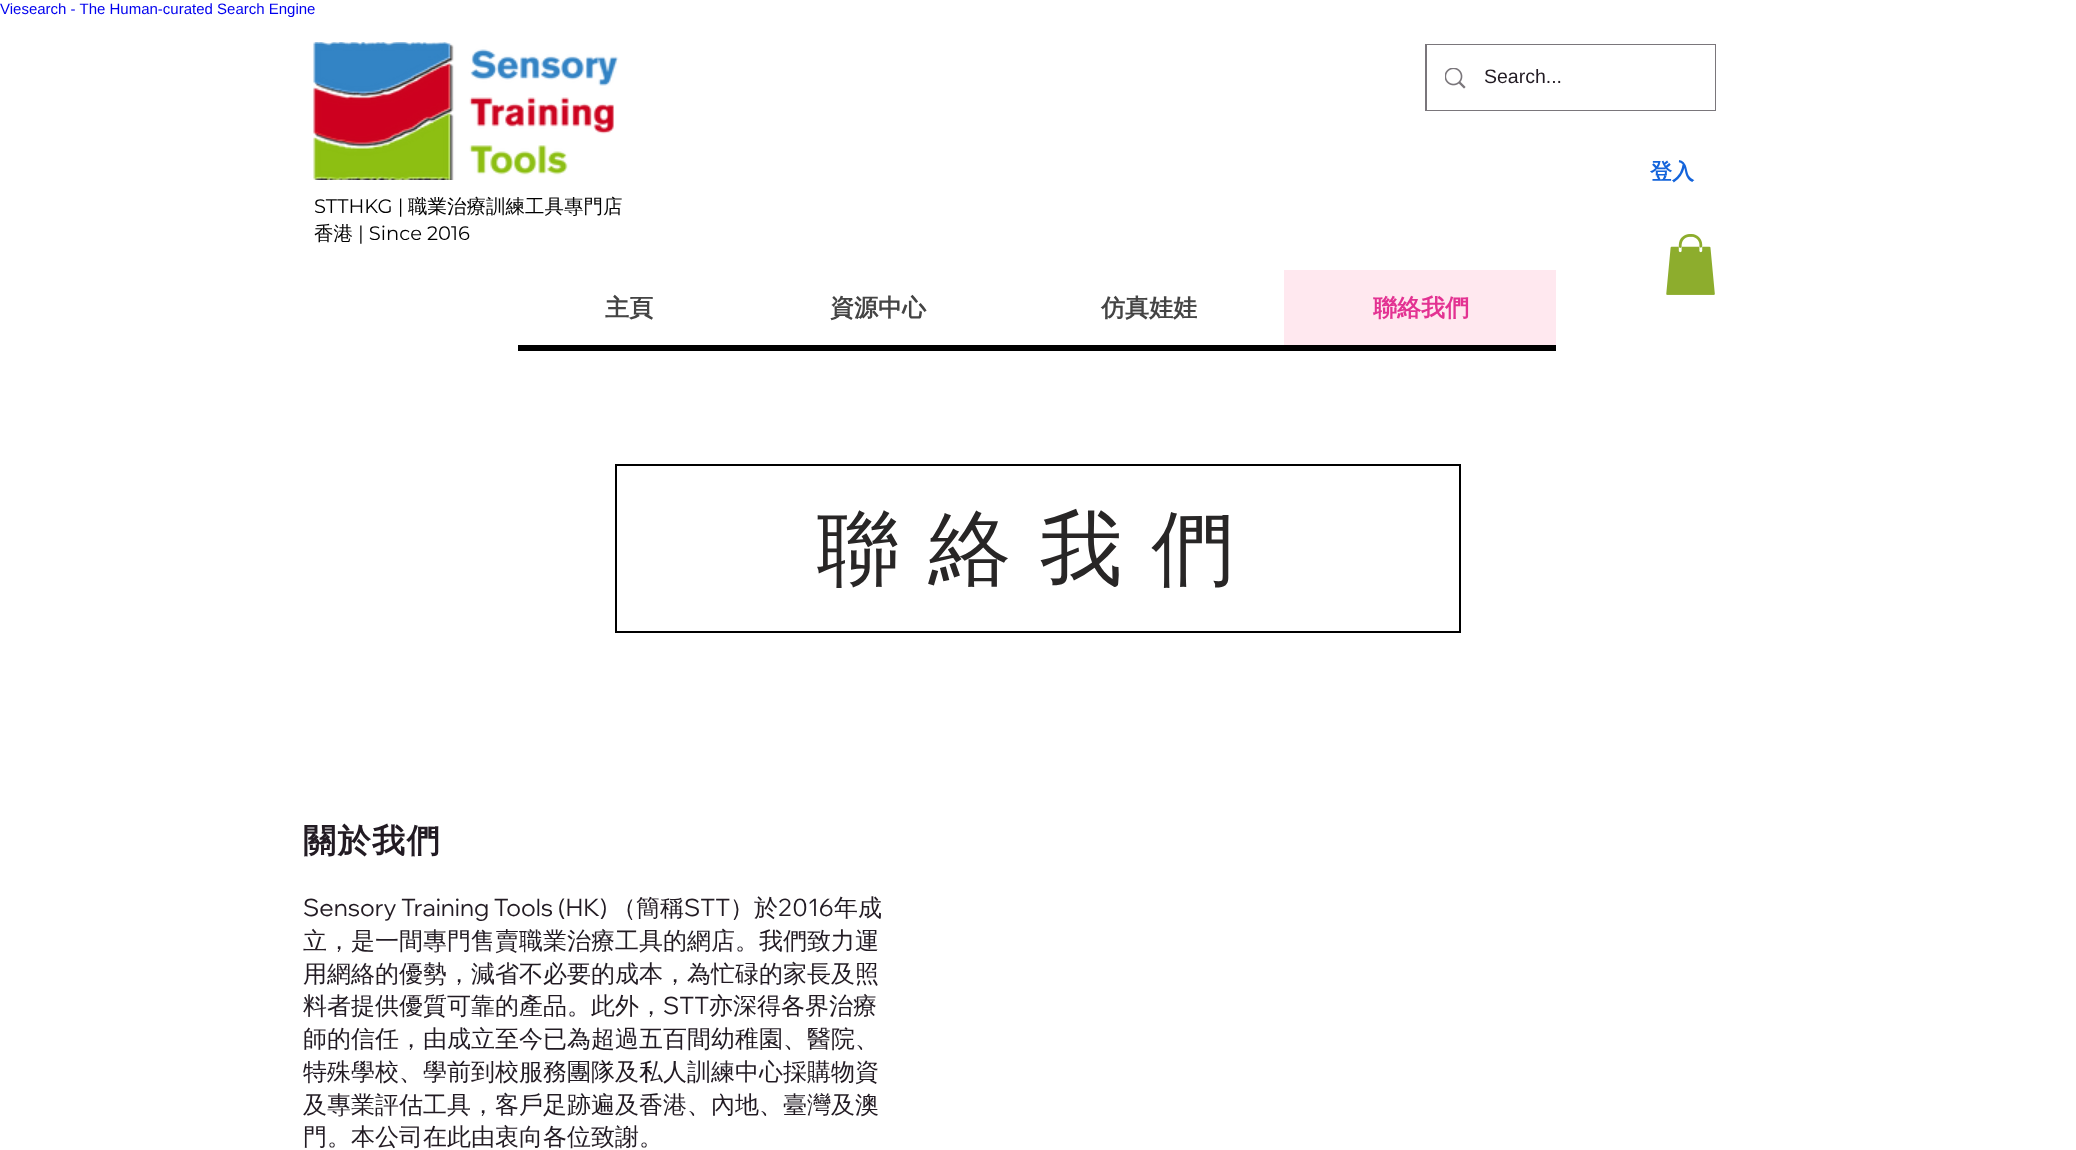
<svg xmlns="http://www.w3.org/2000/svg" width="2076" height="1150" viewBox="0 0 2076 1150">
  <style>
    .t1 { font: 15px Liberation Sans; fill: #00e; }
    .t2 { font: 19.5px Liberation Sans; fill: #221b23; }
    .t3 { font: bold 22px WenQuanYi Zen Hei; fill: #1464db; }
    .t4 { font: 19.5px Montserrat; fill: #000; }
    .t5 { font: 500 19.5px WenQuanYi Zen Hei; fill: #000; }
    .t6 { font: bold 24px WenQuanYi Zen Hei; fill: #444; }
    .t7 { font: bold 24px WenQuanYi Zen Hei; fill: #e33292; }
    .t8 { font: 500 82.5px WenQuanYi Zen Hei; letter-spacing: 29px; fill: #282626; }
    .t9 { font: bold 33px WenQuanYi Zen Hei; letter-spacing: 1.5px; fill: #221b23; }
    .t10 { font: 24px Wix Madefor Display; fill: #221b23; }
    .t11 { font: 500 24px WenQuanYi Zen Hei; fill: #221b23; }
  </style>
  <rect width="100%" height="100%" fill="#fff"/>
  <text x="0" y="14" class="t1">Viesearch - The Human-curated Search Engine</text>
  <rect x="290" y="17" width="2" height="1" fill="#fff"/>
  <image x="313" y="42" width="306" height="138" href="images/1.png"/>
  <rect x="1426" y="45" width="289" height="65" fill="none" stroke="#7a767b" stroke-width="2"/>
  <rect x="1427" y="45" width="288" height="65" fill="#fff"/>
  <image x="1445" y="68" width="21" height="21" href="images/2.png"/>
  <text x="1484" y="83" class="t2">Search...</text>
  <text x="1650" y="179" class="t3">登入</text>
  <text x="314" y="213" class="t4">STTHKG |</text>
  <text x="408" y="213" class="t5">職業治療訓練工具專門店</text>
  <text x="314" y="240" class="t5">香港</text>
  <text x="358" y="240" class="t4">| Since 2016</text>
  <image x="1666" y="234" width="49" height="61" href="images/3.png"/>
  <path d="M518 345V351H1556V276V345Z" fill="#000"/>
  <text x="605" y="316" class="t6">主頁</text>
  <text x="830" y="316" class="t6">資源中心</text>
  <text x="1101" y="316" class="t6">仿真娃娃</text>
  <rect x="1284" y="270" width="272" height="75" fill="#ffe8ef"/>
  <text x="1373" y="316" class="t7">聯絡我們</text>
  <rect x="616" y="465" width="844" height="167" fill="none" stroke="#000" stroke-width="2"/>
  <text x="817" y="577" class="t8">聯絡我們</text>
  <text x="303" y="852" class="t9">關於我們</text>
  <text x="303" y="916" class="t10">Sensory Training Tools (HK)</text>
  <text x="612" y="916" class="t11">（簡稱</text>
  <text x="684" y="916" class="t10">STT</text>
  <text x="730" y="916" class="t11">）於</text>
  <text x="778" y="916" class="t10">2016</text>
  <text x="834" y="916" class="t11">年成</text>
  <text x="303" y="949" class="t11">立，是一間專門售賣職業治療工具的網店。我們致力運</text>
  <text x="303" y="982" class="t11">用網絡的優勢，減省不必要的成本，為忙碌的家長及照</text>
  <text x="303" y="1014" class="t11">料者提供優質可靠的產品。此外，</text>
  <text x="663" y="1014" class="t10">STT</text>
  <text x="709" y="1014" class="t11">亦深得各界治療</text>
  <text x="303" y="1047" class="t11">師的信任，由成立至今已為超過五百間幼稚園、醫院、</text>
  <text x="303" y="1080" class="t11">特殊學校、學前到校服務團隊及私人訓練中心採購物資</text>
  <text x="303" y="1113" class="t11">及專業評估工具，客戶足跡遍及香港、內地、臺灣及澳</text>
  <text x="303" y="1145" class="t11">門。本公司在此由衷向各位致謝。</text>
</svg>
